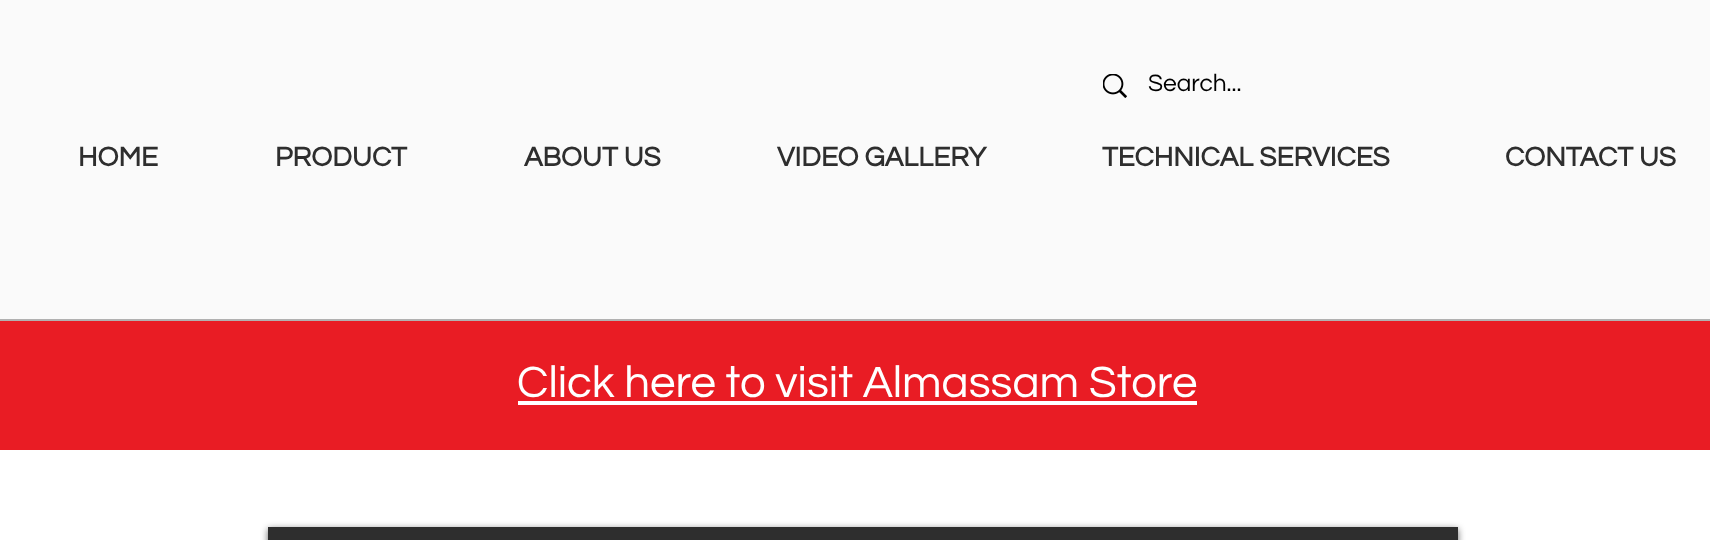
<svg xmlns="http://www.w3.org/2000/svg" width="1710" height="540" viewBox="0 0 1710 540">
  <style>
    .t1 { font: 24.5px Questrial; fill: #000; }
    .t2 { font: bold 28px Questrial; fill: #2e2e2e; }
    .t3 { font: 45.5px Questrial; fill: #fff; }
  </style>
  <rect width="100%" height="100%" fill="#fff"/>
  <rect x="0" y="319" width="1710" height="2" fill="#b1b1b1"/>
  <rect x="0" y="0" width="1710" height="319" fill="#fafafa"/>
  <image x="1103" y="74" width="24" height="24" href="images/1.png"/>
  <text x="1148" y="91" class="t1">Search...</text>
  <text x="78" y="166" class="t2">HOME</text>
  <text x="275" y="166" class="t2">PRODUCT</text>
  <text x="524" y="166" class="t2">ABOUT US</text>
  <text x="777" y="166" class="t2">VIDEO GALLERY</text>
  <text x="1102" y="166" class="t2">TECHNICAL SERVICES</text>
  <text x="1505" y="166" class="t2">CONTACT US</text>
  <rect x="0" y="321" width="1710" height="129" fill="#e91c24"/>
  <text x="517" y="397" class="t3">Click here to visit Almassam Store</text>
  <rect x="518" y="401" width="679" height="4" fill="#fff"/>
  <rect x="268" y="529" width="1190" height="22" fill="#00000099" filter="blur(3.5px)"/>
  <rect x="268" y="527" width="1190" height="13" fill="#2e2e2e"/>
</svg>
